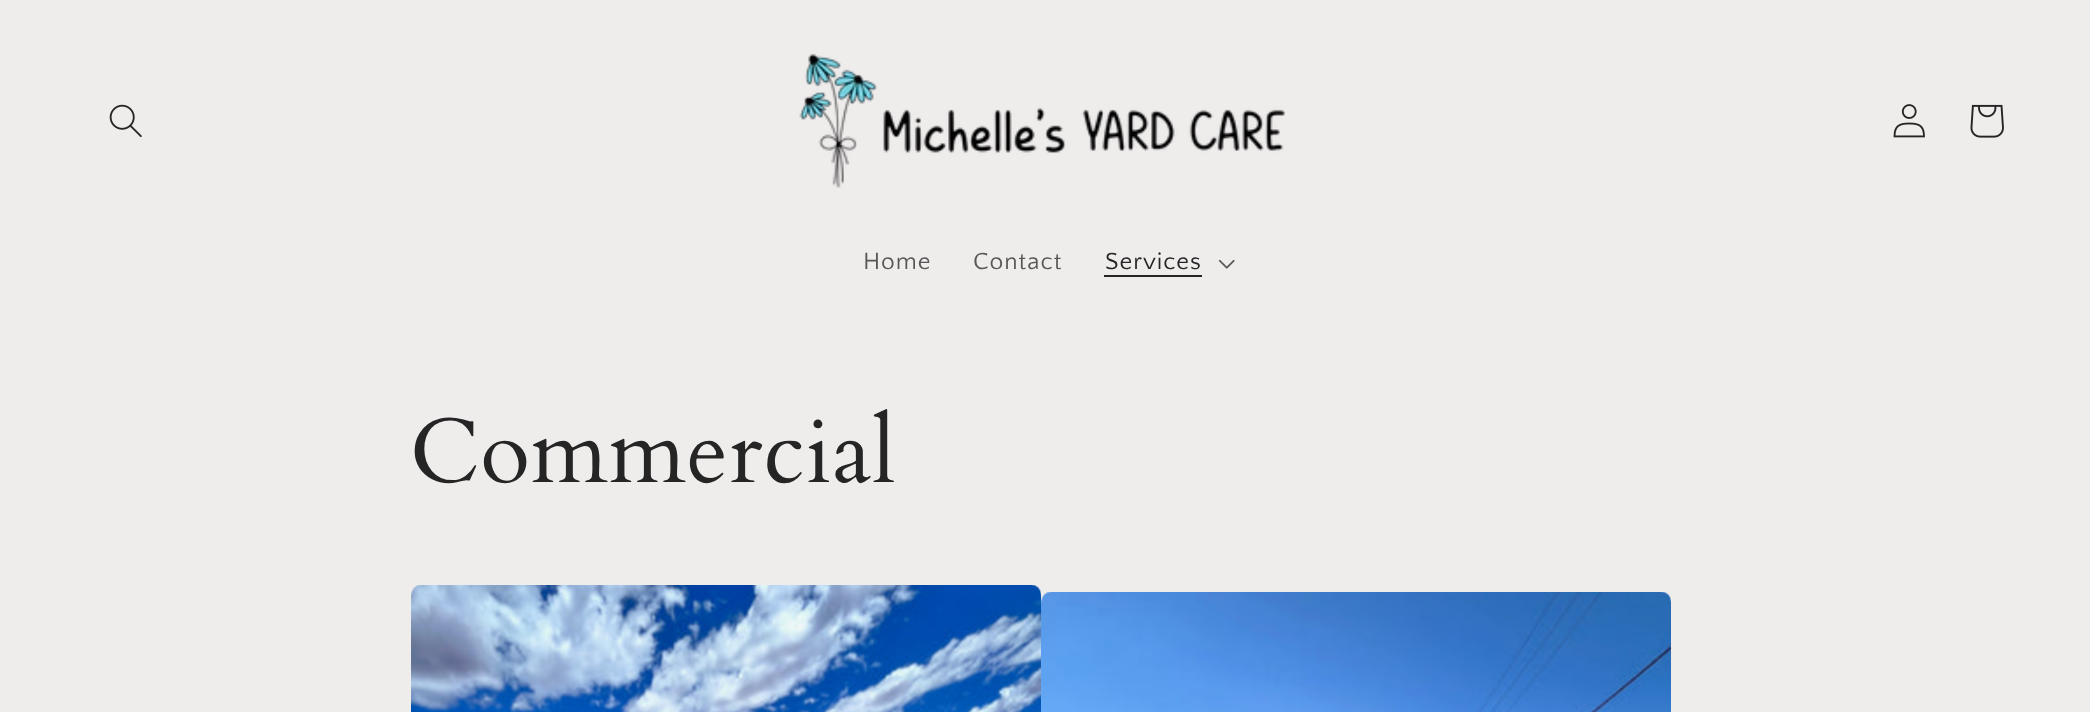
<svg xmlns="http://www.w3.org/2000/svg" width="2090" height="712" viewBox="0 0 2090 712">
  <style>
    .t1 { font: 24.5px Quattrocento Sans; letter-spacing: 1px; fill: #585757; }
    .t2 { font: 24.5px Quattrocento Sans; letter-spacing: 1px; fill: #252525; }
    .t3 { font: 91px Cardo; letter-spacing: 1px; fill: #252525; }
  </style>
  <rect width="100%" height="100%" fill="#efecec"/>
  <image x="109" y="104" width="33" height="34" href="images/1.png"/>
  <image x="799" y="53" width="486" height="135" href="images/2.png"/>
  <image x="1893" y="104" width="32" height="34" href="images/3.png"/>
  <image x="1970" y="104" width="34" height="34" href="images/4.png"/>
  <text x="863" y="269" class="t1">Home</text>
  <text x="973" y="269" class="t1">Contact</text>
  <text x="1105" y="269" class="t2">Services</text>
  <rect x="1104" y="275" width="98" height="2" fill="#252525"/>
  <image x="1218" y="259" width="17" height="10" href="images/5.png"/>
  <text x="410" y="482" class="t3">Commercial</text>
  <image x="411" y="585" width="630" height="127" href="images/6.png"/>
  <image x="1041" y="592" width="630" height="120" href="images/7.png"/>
</svg>
